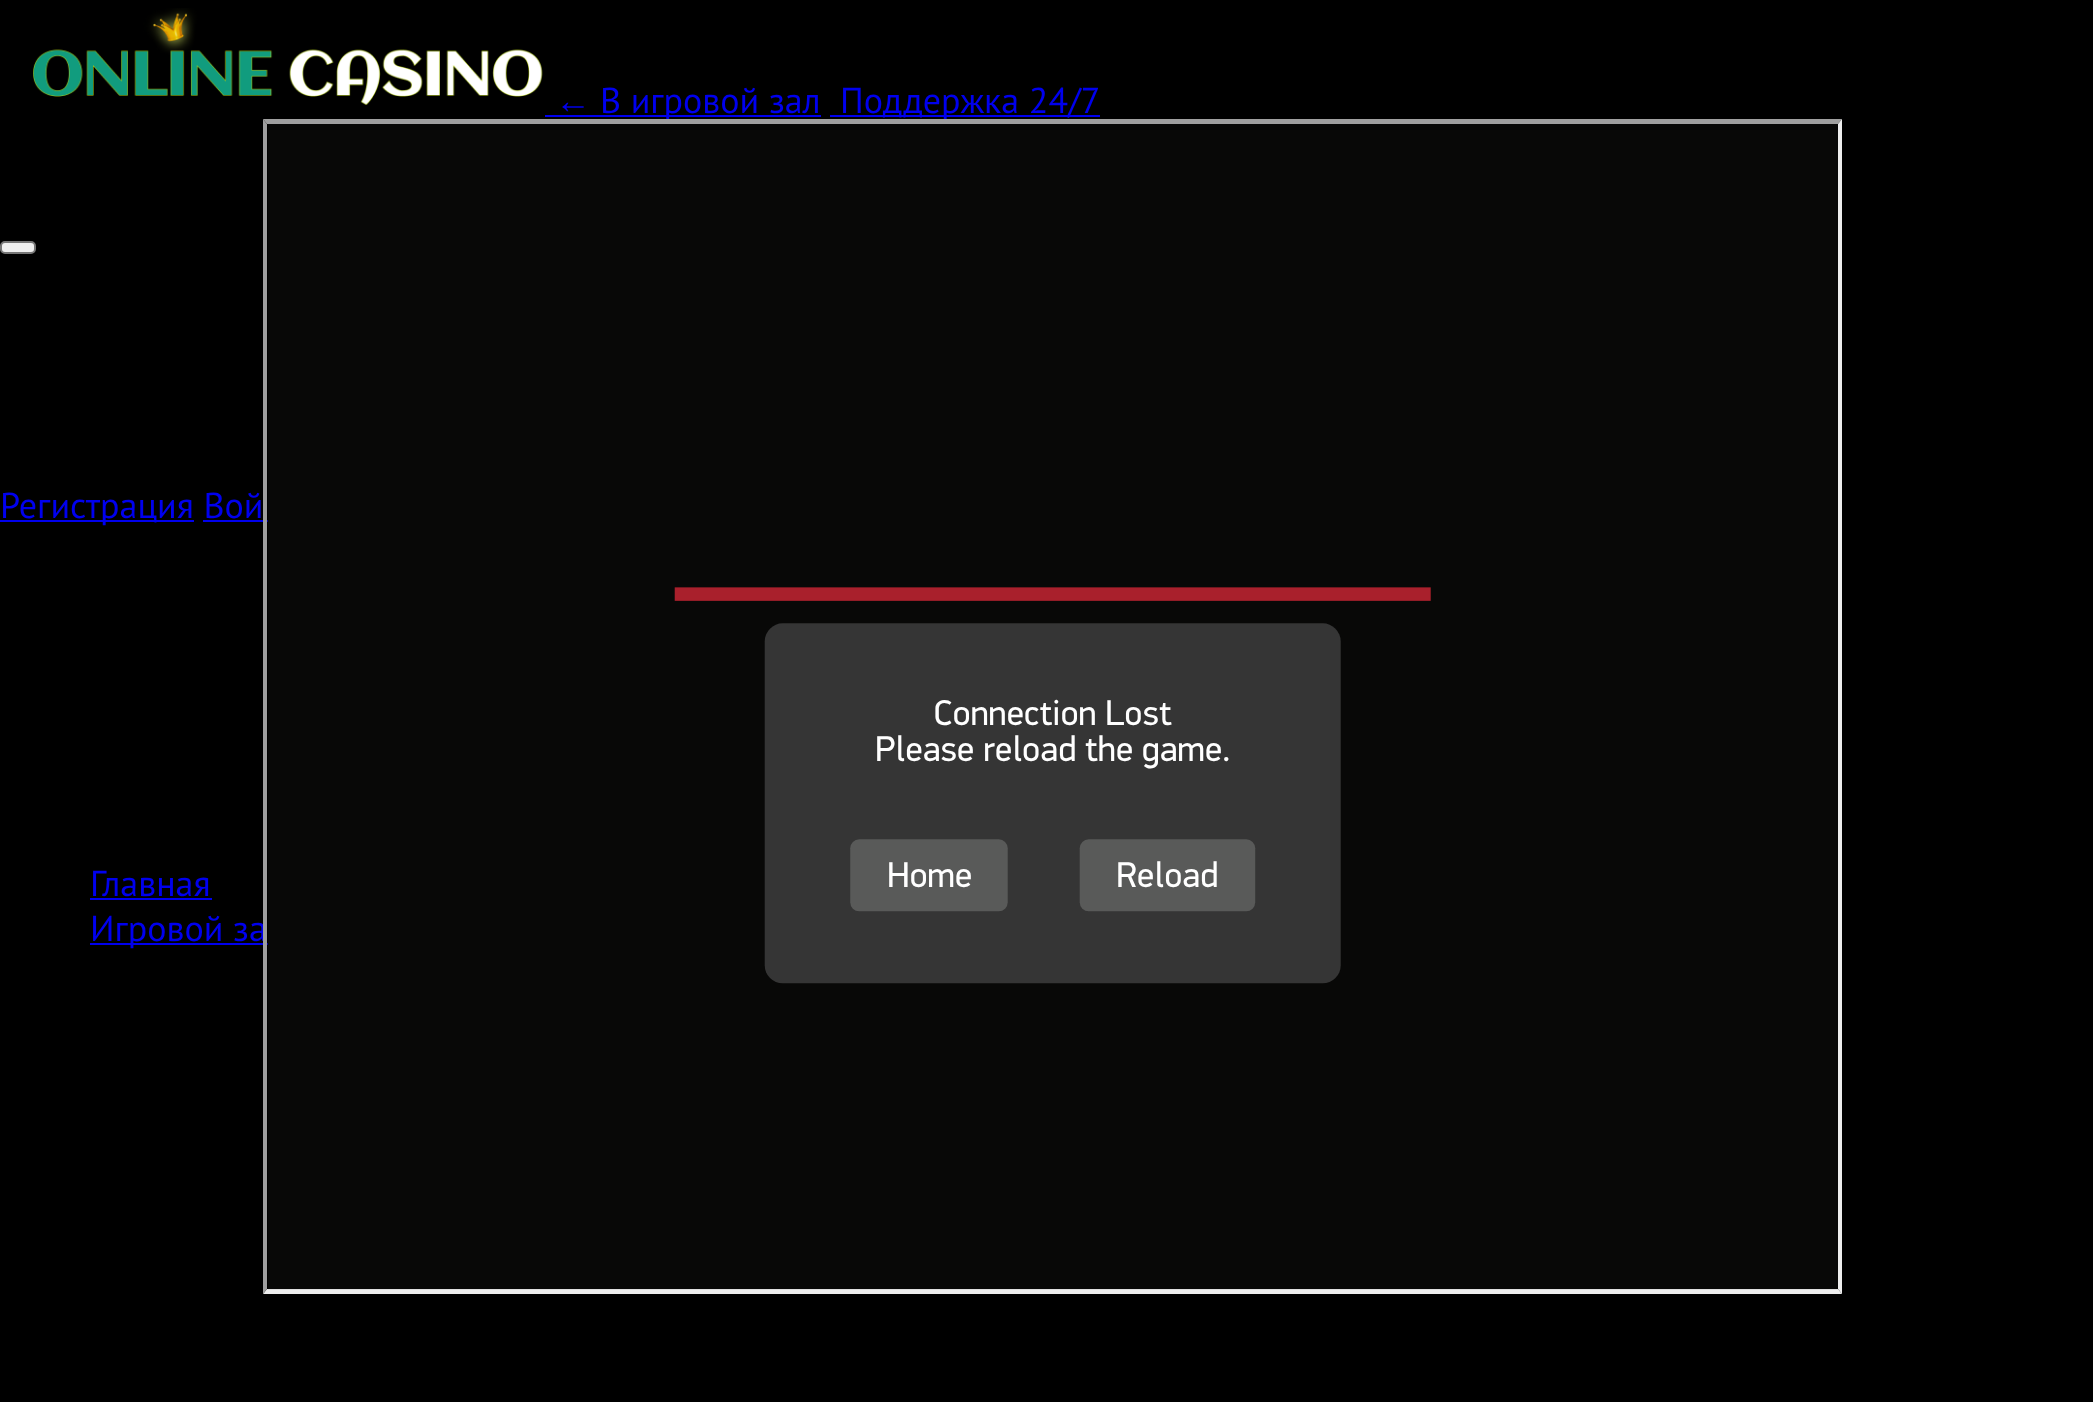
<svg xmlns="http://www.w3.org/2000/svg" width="2093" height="1402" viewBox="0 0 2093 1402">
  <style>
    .t1 { font: 36px Liberation Sans; fill: #00e; }
    .t2 { font: 36px PT Sans; fill: #00e; }
  </style>
  <rect width="100%" height="100%" fill="#000"/>
  <image x="33" y="8" width="510" height="97" href="images/1.png"/>
  <text x="555" y="113" class="t1">←</text>
  <rect x="545" y="115" width="276" height="2" fill="#00e"/>
  <text x="600" y="113" class="t2">В игровой зал</text>
  <rect x="830" y="115" width="270" height="2" fill="#00e"/>
  <text x="840" y="113" class="t2">Поддержка 24/7</text>
  <path d="M263 119H1842L1838 124H267Z" fill="#9f9f9f"/>
  <path d="M1842 119V1294L1838 1289V124Z" fill="#eee"/>
  <path d="M1842 1294H263L267 1289H1838Z" fill="#eee"/>
  <rect x="203" y="520" width="65" height="2" fill="#00e"/>
  <rect x="90" y="943" width="178" height="2" fill="#00e"/>
  <text x="90" y="941" class="t2">Игровой за</text>
  <path d="M263 1294V119L267 124V1289Z" fill="#9f9f9f"/>
  <image x="267" y="124" width="1571" height="1166" href="images/2.png"/>
  <rect x="1" y="242" width="34" height="11" rx="4" fill="#efefef" stroke="#767676" stroke-width="2"/>
  <rect x="0" y="520" width="194" height="2" fill="#00e"/>
  <text x="0" y="518" class="t2">Регистрация Вой</text>
  <text x="90" y="896" class="t2">Главная</text>
  <rect x="90" y="898" width="122" height="2" fill="#00e"/>
</svg>
